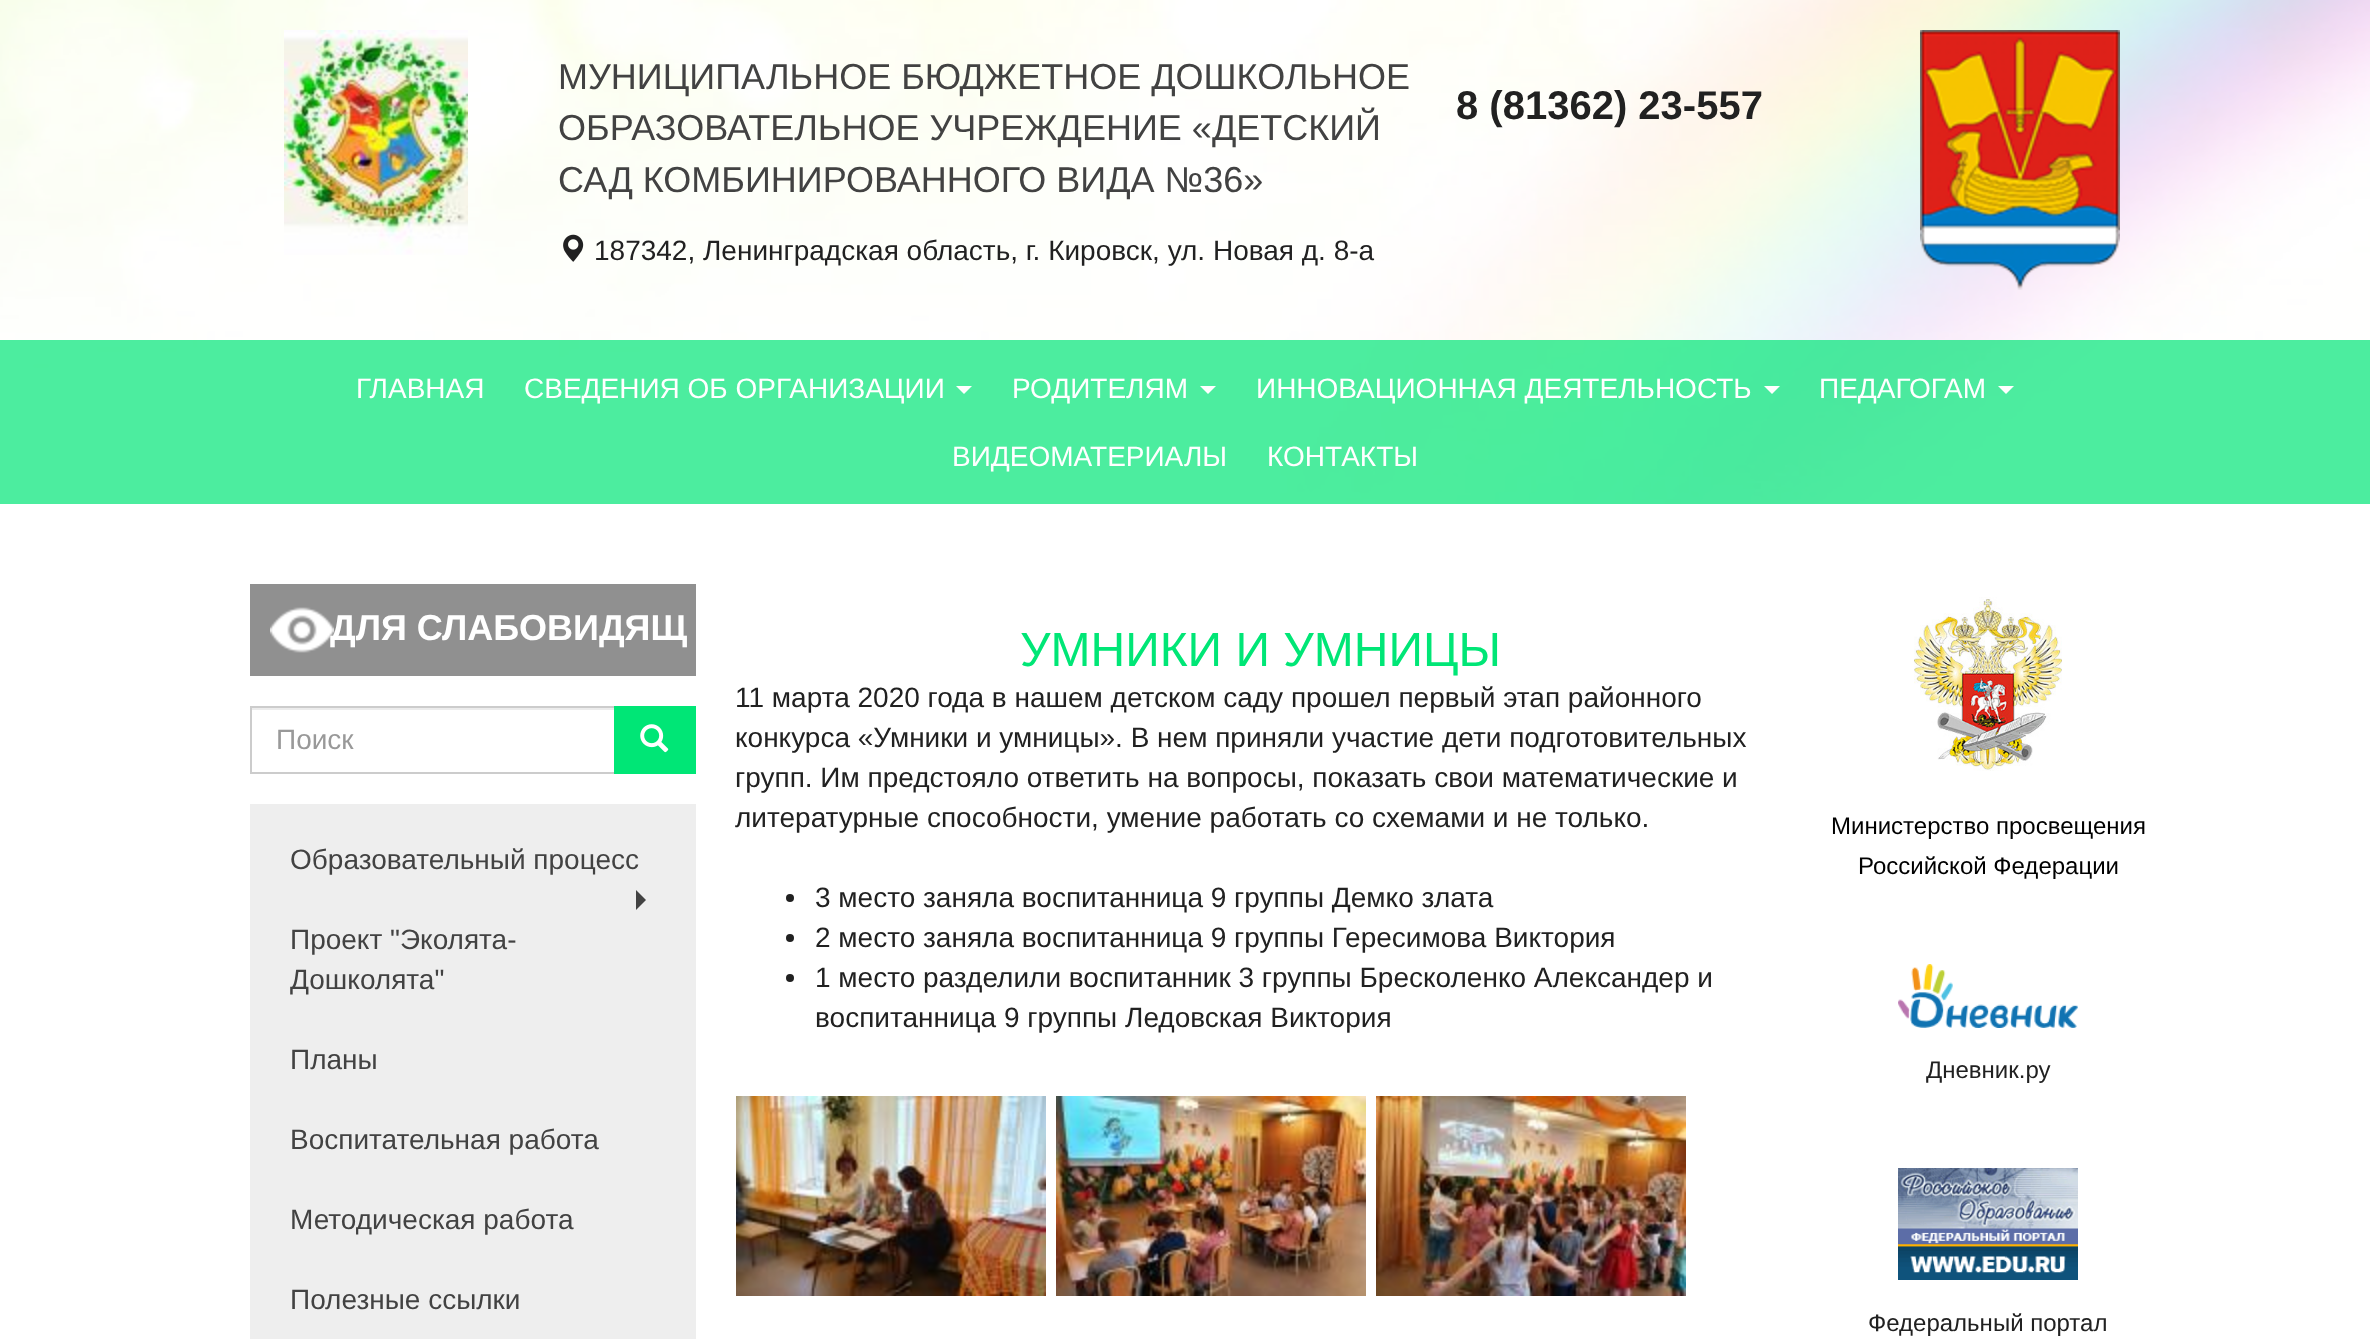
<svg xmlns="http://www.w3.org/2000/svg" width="2370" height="1339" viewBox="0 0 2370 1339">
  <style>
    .t1 { font: 36px Liberation Sans; fill: #424242; }
    .t2 { font: bold 40px Liberation Sans; fill: #212121; }
    .t3 { font: 28px Liberation Sans; fill: #212121; }
    .t4 { font: 28px Liberation Sans; fill: #fff; }
    .t5 { font: bold 36px Liberation Sans; fill: #fff; }
    .t6 { font: 28px Liberation Sans; fill: #999; }
    .t7 { font: 28px Liberation Sans; fill: #424242; }
    .t8 { font: 48px Liberation Sans; fill: #00e676; }
    .t9 { font: 24px Liberation Sans; fill: #000; }
    .t10 { font: 24px Liberation Sans; fill: #212121; }
  </style>
  <rect width="100%" height="100%" fill="#fff"/>
  <image x="0" y="0" width="2370" height="504" href="images/1.png"/>
  <rect x="0" y="0" width="2370" height="504" fill="#ffffffa6"/>
  <image x="284" y="30" width="184" height="225" href="images/2.png"/>
  <text x="558" y="89" class="t1">МУНИЦИПАЛЬНОЕ БЮДЖЕТНОЕ ДОШКОЛЬНОЕ</text>
  <text x="558" y="140" class="t1">ОБРАЗОВАТЕЛЬНОЕ УЧРЕЖДЕНИЕ «ДЕТСКИЙ</text>
  <text x="558" y="192" class="t1">САД КОМБИНИРОВАННОГО ВИДА №36»</text>
  <text x="1456" y="119" class="t2">8 (81362) 23-557</text>
  <image x="563" y="234" width="21" height="28" href="images/3.png"/>
  <text x="594" y="260" class="t3">187342, Ленинградская область, г. Кировск, ул. Новая д. 8-а</text>
  <image x="1920" y="30" width="200" height="260" href="images/4.png"/>
  <rect x="0" y="340" width="2370" height="164" fill="#00e676b3"/>
  <text x="356" y="398" class="t4">ГЛАВНАЯ</text>
  <text x="524" y="398" class="t4">СВЕДЕНИЯ ОБ ОРГАНИЗАЦИИ</text>
  <path d="M956 386H972L964 394Z" fill="#fff"/>
  <text x="1012" y="398" class="t4">РОДИТЕЛЯМ</text>
  <path d="M1200 386H1216L1208 394Z" fill="#fff"/>
  <text x="1256" y="398" class="t4">ИННОВАЦИОННАЯ ДЕЯТЕЛЬНОСТЬ</text>
  <path d="M1764 386H1780L1772 394Z" fill="#fff"/>
  <text x="1819" y="398" class="t4">ПЕДАГОГАМ</text>
  <path d="M1998 386H2014L2006 394Z" fill="#fff"/>
  <text x="952" y="466" class="t4">ВИДЕОМАТЕРИАЛЫ</text>
  <text x="1267" y="466" class="t4">КОНТАКТЫ</text>
  <rect x="250" y="584" width="446" height="92" fill="#909090"/>
  <image x="270" y="607" width="64" height="46" href="images/5.png"/>
  <text x="330" y="640" class="t5">ДЛЯ СЛАБОВИДЯЩ</text>
  <rect x="252" y="708" width="362" height="2" fill="#ececec"/>
  <rect x="251" y="707" width="364" height="66" fill="none" stroke="#ccc" stroke-width="2"/>
  <text x="276" y="749" class="t6">Поиск</text>
  <rect x="614" y="706" width="82" height="68" fill="#00e676"/>
  <image x="640" y="724" width="29" height="29" href="images/6.png"/>
  <rect x="250" y="804" width="446" height="535" fill="#eee"/>
  <text x="290" y="869" class="t7">Образовательный процесс</text>
  <path d="M636 910V890L646 900Z" fill="#424242"/>
  <text x="290" y="949" class="t7">Проект "Эколята-</text>
  <text x="290" y="989" class="t7">Дошколята"</text>
  <text x="290" y="1069" class="t7">Планы</text>
  <text x="290" y="1149" class="t7">Воспитательная работа</text>
  <text x="290" y="1229" class="t7">Методическая работа</text>
  <text x="290" y="1309" class="t7">Полезные ссылки</text>
  <text x="1020" y="666" class="t8">УМНИКИ И УМНИЦЫ</text>
  <text x="735" y="707" class="t3">11 марта 2020 года в нашем детском саду прошел первый этап районного</text>
  <text x="735" y="747" class="t3">конкурса «Умники и умницы». В нем приняли участие дети подготовительных</text>
  <text x="735" y="787" class="t3">групп. Им предстояло ответить на вопросы, показать свои математические и</text>
  <text x="735" y="827" class="t3">литературные способности, умение работать со схемами и не только.</text>
  <circle cx="790" cy="898" r="4" fill="#212121"/>
  <text x="815" y="907" class="t3">3 место заняла воспитанница 9 группы Демко злата</text>
  <circle cx="790" cy="938" r="4" fill="#212121"/>
  <text x="815" y="947" class="t3">2 место заняла воспитанница 9 группы Гересимова Виктория</text>
  <circle cx="790" cy="978" r="4" fill="#212121"/>
  <text x="815" y="987" class="t3">1 место разделили воспитанник 3 группы Бресколенко Александер и</text>
  <text x="815" y="1027" class="t3">воспитанница 9 группы Ледовская Виктория</text>
  <image x="736" y="1096" width="310" height="200" href="images/7.png"/>
  <image x="1056" y="1096" width="310" height="200" href="images/8.png"/>
  <image x="1376" y="1096" width="310" height="200" href="images/9.png"/>
  <image x="1914" y="597" width="148" height="174" href="images/10.png"/>
  <text x="1831" y="834" class="t9">Министерство просвещения</text>
  <text x="1858" y="874" class="t9">Российской Федерации</text>
  <image x="1898" y="964" width="180" height="64" href="images/11.png"/>
  <text x="1926" y="1078" class="t10">Дневник.ру</text>
  <image x="1898" y="1168" width="180" height="112" href="images/12.png"/>
  <text x="1868" y="1331" class="t10">Федеральный портал</text>
</svg>
